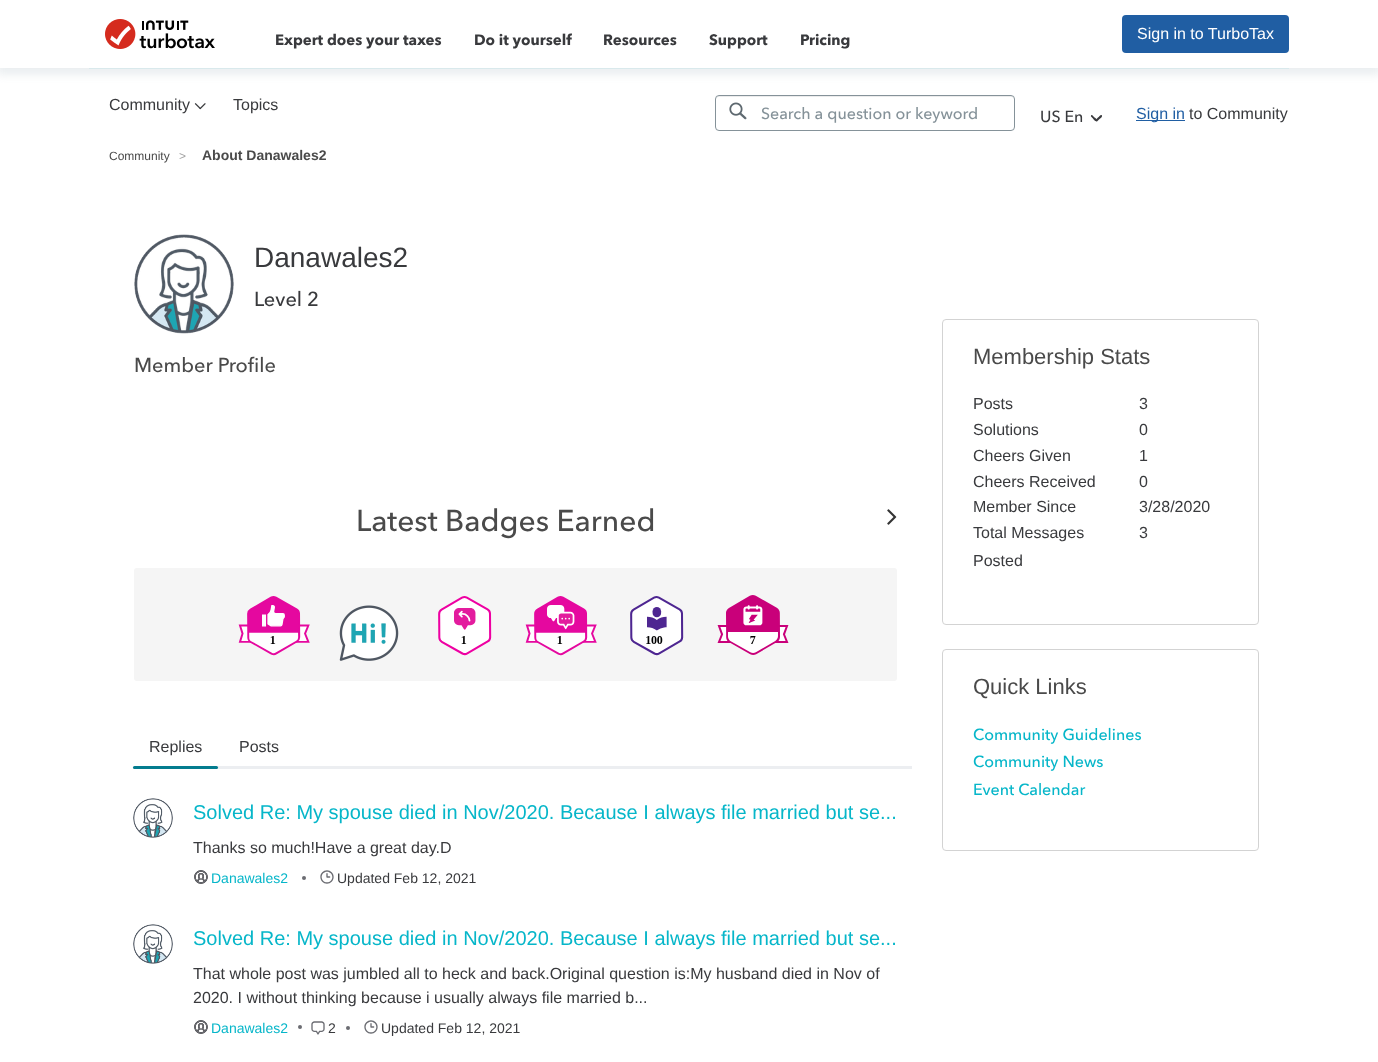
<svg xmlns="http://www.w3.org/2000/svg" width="1378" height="1062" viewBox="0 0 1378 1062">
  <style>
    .t1 { font: bold 15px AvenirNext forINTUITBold; fill: #393a3d; }
    .t2 { font: 16px Liberation Sans; fill: #fff; }
    .t3 { font: 16px Liberation Sans; fill: #393a3d; }
    .t4 { font: 500 16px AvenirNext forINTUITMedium; fill: #859299; }
    .t5 { font: 500 16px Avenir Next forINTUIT; fill: #393a3d; }
    .t6 { font: 16px Liberation Sans; fill: #205ea3; }
    .t7 { font: 12px Liberation Sans; fill: #4a4a4a; }
    .t8 { font: 12px Liberation Sans; fill: #a1a1a1; }
    .t9 { font: bold 14px Liberation Sans; fill: #4a4a4a; }
    .t10 { font: 28px Liberation Sans; fill: #393a3d; }
    .t11 { font: 500 20px AvenirNext forINTUITMedium; fill: #393a3d; }
    .t12 { font: 500 20px AvenirNext forINTUITMedium; fill: #4a4a4a; }
    .t13 { font: 500 30px AvenirNext forINTUITMedium; fill: #4a4a4a; }
    .t14 { font: 20px Liberation Sans; fill: #06b6c9; }
    .t15 { font: 14px Liberation Sans; fill: #06b6c9; }
    .t16 { font: 14px Liberation Sans; fill: #393a3d; }
    .t17 { font: 22px Liberation Sans; fill: #4a4a4a; }
    .t18 { font: 500 16px AvenirNext forINTUITMedium; fill: #06b6c9; }
  </style>
  <defs>
    <clipPath id="clip1"><rect x="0" y="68" width="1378" height="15"/></clipPath>
  </defs>
  <rect width="100%" height="100%" fill="#fff"/>
  <g clip-path="url(#clip1)">
    <rect x="-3" y="1" width="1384" height="74" fill="#ebeff1" filter="blur(4px)"/>
  </g>
  <image x="105" y="19" width="110" height="30" href="images/1.png"/>
  <text x="275" y="45" class="t1">Expert does your taxes</text>
  <text x="474" y="45" class="t1">Do it yourself</text>
  <text x="603" y="45" class="t1">Resources</text>
  <text x="709" y="45" class="t1">Support</text>
  <text x="800" y="45" class="t1">Pricing</text>
  <rect x="1122" y="15" width="167" height="38" rx="4" fill="#205ea3"/>
  <text x="1137" y="39" class="t2">Sign in to TurboTax</text>
  <rect x="89" y="68" width="1200" height="1" fill="#d9e9ec"/>
  <text x="109" y="110" class="t3">Community</text>
  <image x="194" y="103" width="12" height="7" href="images/2.png"/>
  <text x="233" y="110" class="t3">Topics</text>
  <path d="M719 97H1011C1013 97 1014 98 1014 100L1013 97L1012 96H719C717 96 716 98 716 100C716 98 717 97 719 97Z" fill="#ececec"/>
  <rect x="715.5" y="95.5" width="299" height="35" rx="3.5" fill="none" stroke="#859299"/>
  <image x="729" y="102" width="18" height="18" href="images/3.png"/>
  <text x="761" y="119" class="t4">Search a question or keyword</text>
  <text x="1040" y="122" class="t5">US En</text>
  <path d="M1092.5 115.5L1094.5 117.5C1095.5 118 1097.5 119.5 1097 121C1096 122.5 1093 119 1092.5 118L1091 116.5C1090.5 115.5 1092 114.5 1092.5 115.5Z" fill="#393a3d"/>
  <path d="M1096 119.5L1098 117.5C1099 117 1100.5 114.5 1101.5 115C1103.5 116.5 1099.5 119 1099 119.5L1097 121.5C1096 121.5 1095.5 120.5 1096 119.5Z" fill="#393a3d"/>
  <rect x="1136" y="120" width="49" height="1" fill="#205ea3"/>
  <text x="1136" y="119" class="t6">Sign in</text>
  <text x="1189" y="119" class="t3">to Community</text>
  <text x="109" y="160" class="t7">Community</text>
  <text x="179" y="160" class="t8">&gt;</text>
  <text x="202" y="160" class="t9">About Danawales2</text>
  <image x="134" y="234" width="100" height="100" href="images/4.png"/>
  <text x="254" y="267" class="t10">Danawales2</text>
  <text x="254" y="306" class="t11">Level 2</text>
  <text x="134" y="372" class="t12">Member Profile</text>
  <text x="356" y="531" class="t13">Latest Badges Earned</text>
  <rect x="134" y="568" width="763" height="113" rx="3" fill="#f5f5f5"/>
  <image x="887" y="509" width="10" height="16" href="images/5.png"/>
  <image x="238" y="596" width="72" height="60" href="images/6.png"/>
  <image x="339" y="605" width="60" height="56" href="images/7.png"/>
  <image x="438" y="596" width="54" height="60" href="images/8.png"/>
  <image x="525" y="596" width="72" height="60" href="images/9.png"/>
  <image x="630" y="596" width="54" height="60" href="images/10.png"/>
  <image x="717" y="595" width="72" height="60" href="images/11.png"/>
  <text x="149" y="752" class="t3">Replies</text>
  <rect x="133" y="766" width="779" height="3" fill="#eceef1"/>
  <rect x="133" y="766" width="85" height="3" rx="1.5" fill="#037c8f"/>
  <text x="239" y="752" class="t3">Posts</text>
  <image x="133" y="798" width="40" height="40" href="images/12.png"/>
  <text x="193" y="819" class="t14">Solved Re: My spouse died in Nov/2020. Because I always file married but se...</text>
  <text x="193" y="853" class="t3">Thanks so much!Have a great day.D</text>
  <image x="194" y="870" width="14" height="14" href="images/13.png"/>
  <text x="211" y="883" class="t15">Danawales2</text>
  <image x="320" y="870" width="14" height="14" href="images/14.png"/>
  <circle cx="304" cy="878" r="2" fill="#6b6c72"/>
  <text x="337" y="883" class="t16">Updated Feb 12, 2021</text>
  <image x="133" y="924" width="40" height="40" href="images/15.png"/>
  <text x="193" y="945" class="t14">Solved Re: My spouse died in Nov/2020. Because I always file married but se...</text>
  <text x="193" y="979" class="t3">That whole post was jumbled all to heck and back.Original question is:My husband died in Nov of</text>
  <text x="193" y="1003" class="t3">2020. I without thinking because i usually always file married b...</text>
  <image x="194" y="1020" width="14" height="14" href="images/13.png"/>
  <text x="211" y="1033" class="t15">Danawales2</text>
  <circle cx="300" cy="1027" r="2" fill="#6b6c72"/>
  <image x="311" y="1021" width="14" height="14" href="images/16.png"/>
  <text x="328" y="1033" class="t16">2</text>
  <image x="364" y="1020" width="14" height="14" href="images/14.png"/>
  <circle cx="348" cy="1028" r="2" fill="#6b6c72"/>
  <text x="381" y="1033" class="t16">Updated Feb 12, 2021</text>
  <rect x="942.5" y="319.5" width="316" height="305" rx="3.5" fill="none" stroke="#d3d3d3"/>
  <text x="973" y="364" class="t17">Membership Stats</text>
  <text x="973" y="409" class="t3">Posts</text>
  <text x="1139" y="409" class="t3">3</text>
  <text x="973" y="435" class="t3">Solutions</text>
  <text x="1139" y="435" class="t3">0</text>
  <text x="973" y="461" class="t3">Cheers Given</text>
  <text x="1139" y="461" class="t3">1</text>
  <text x="973" y="487" class="t3">Cheers Received</text>
  <text x="1139" y="487" class="t3">0</text>
  <text x="973" y="512" class="t3">Member Since</text>
  <text x="1139" y="512" class="t3">3/28/2020</text>
  <text x="973" y="538" class="t3">Total Messages</text>
  <text x="973" y="566" class="t3">Posted</text>
  <text x="1139" y="538" class="t3">3</text>
  <rect x="942.5" y="649.5" width="316" height="201" rx="3.5" fill="none" stroke="#d3d3d3"/>
  <text x="973" y="694" class="t17">Quick Links</text>
  <text x="973" y="740" class="t18">Community Guidelines</text>
  <text x="973" y="767" class="t18">Community News</text>
  <text x="973" y="795" class="t18">Event Calendar</text>
</svg>
